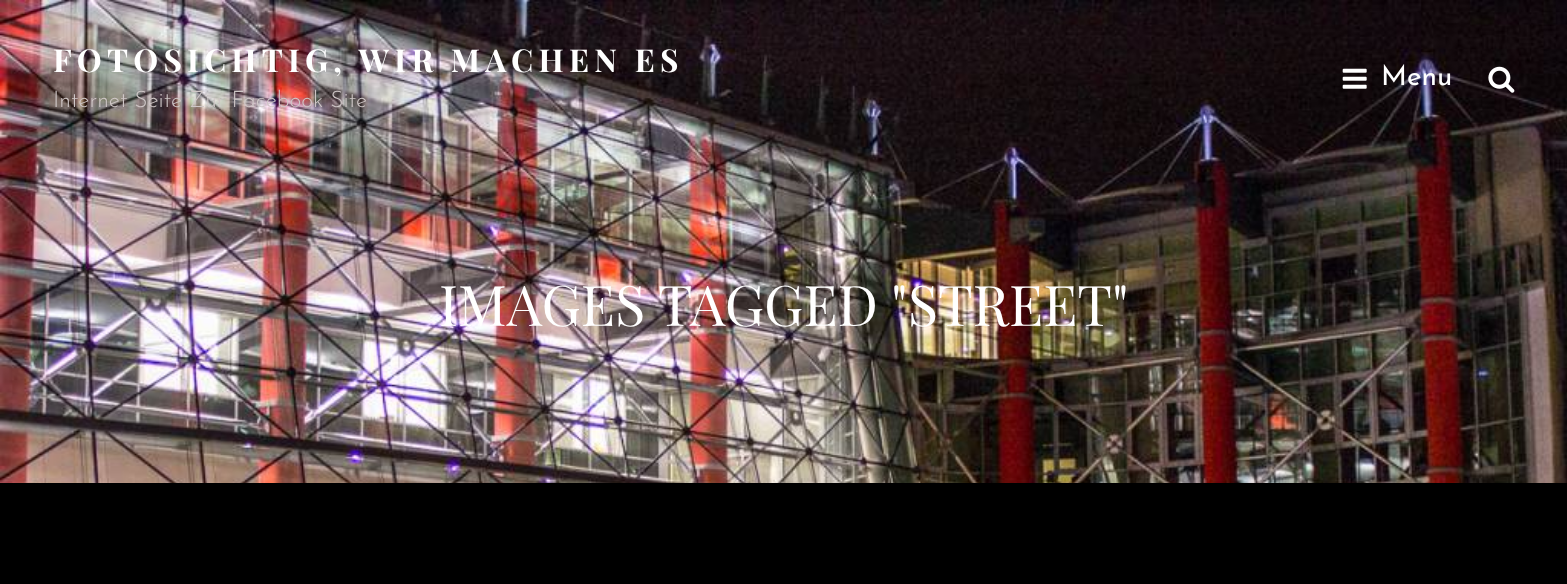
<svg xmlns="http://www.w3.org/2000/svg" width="1567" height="584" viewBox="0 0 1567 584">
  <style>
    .t1 { font: bold 31.5px Playfair Display; letter-spacing: 5.25px; fill: #fff; }
    .t2 { font: 300 22.75px Josefin Sans; fill: #cfc7c7; }
    .t3 { font: 28px Josefin Sans; fill: #fff; }
    .t4 { font: 56px Playfair Display; fill: #fff; }
  </style>
  <rect width="100%" height="100%" fill="#000"/>
  <image x="0" y="0" width="1567" height="483" href="images/3.png"/>
  <text x="53" y="72" class="t1">FOTOSICHTIG, WIR MACHEN ES</text>
  <text x="53" y="107" class="t2">Internet Seite Zur Facebook Site</text>
  <image x="1342" y="68" width="25" height="21" href="images/1.png"/>
  <text x="1381" y="85" class="t3">Menu</text>
  <image x="1488" y="66" width="27" height="27" href="images/2.png"/>
  <text x="439" y="326" class="t4">IMAGES TAGGED "STREET"</text>
</svg>
